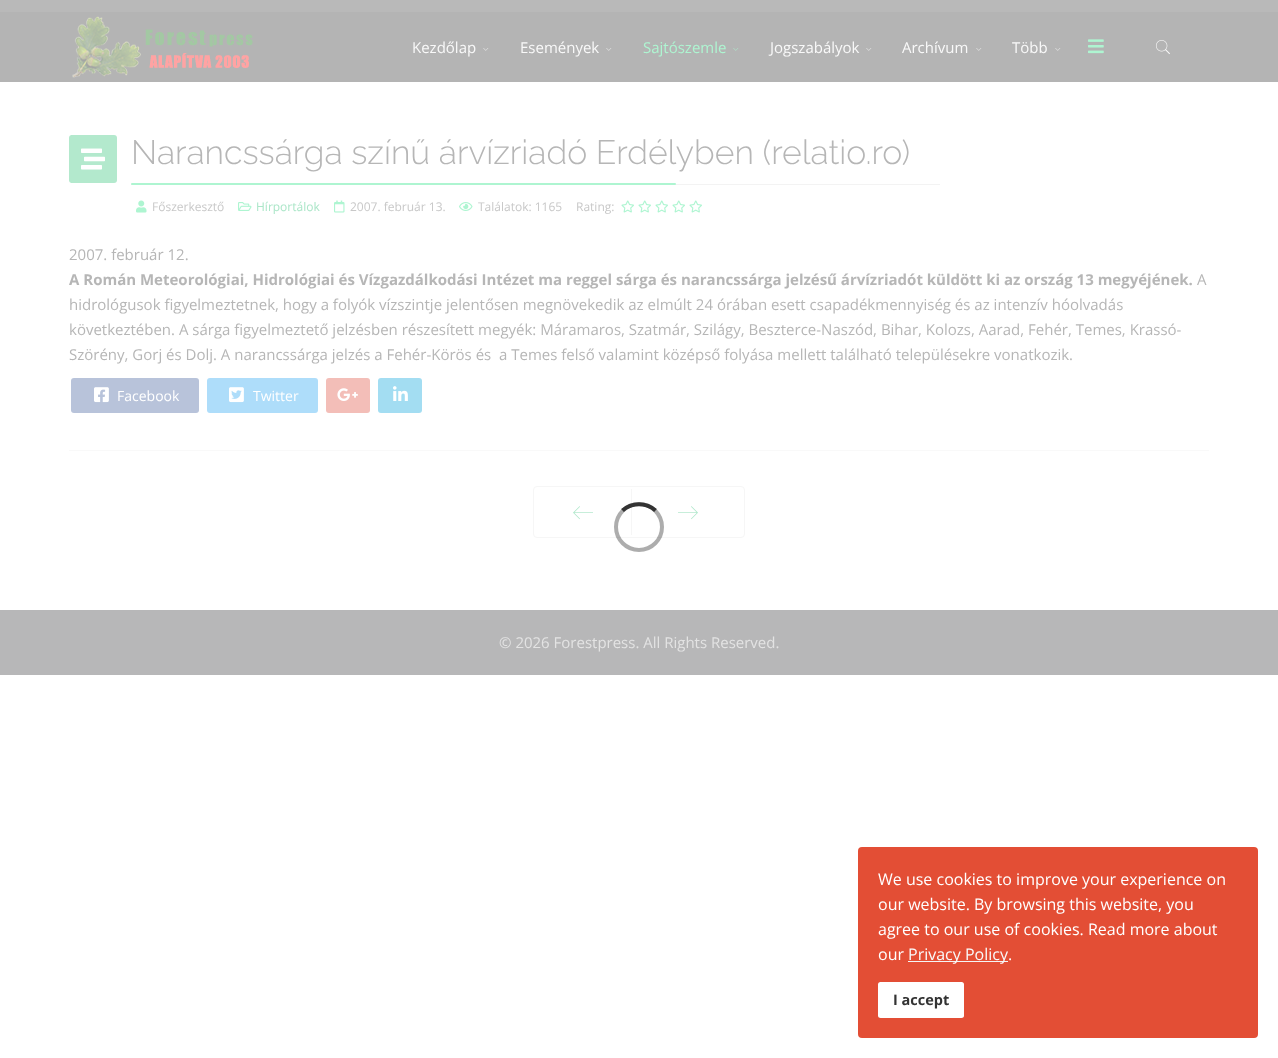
<svg xmlns="http://www.w3.org/2000/svg" width="1278" height="1058" viewBox="0 0 1278 1058">
  <style>
    .t1 { font: 15px Open Sans; fill: #f9f9f9; }
    .t2 { font: 15px Open Sans; fill: #aef5d1; }
    .t3 { font: 300 33.75px Raleway; fill: #b6b6b6; }
    .t4 { font: 12px Open Sans; fill: #c8c8c8; }
    .t5 { font: 12px Open Sans; fill: #abe6c8; }
    .t6 { font: 15px Open Sans; fill: #b6b6b6; }
    .t7 { font: bold 15px Open Sans; fill: #b6b6b6; }
    .t8 { font: 14px Open Sans; fill: #fff; }
    .t9 { font: 15px Open Sans; fill: #e3e3e3; }
    .t10 { font: 16px Open Sans; fill: #fff; }
    .t11 { font: 16px Open Sans; fill: #f9f9f9; }
    .t12 { font: bold 14.5px Open Sans; fill: #333; }
  </style>
  <rect width="100%" height="100%" fill="#fff"/>
  <rect x="0" y="0" width="1278" height="12" fill="#b9b9b9"/>
  <rect x="0" y="12" width="1278" height="70" fill="#b4b4b4"/>
  <image x="72" y="16" width="181" height="62" href="images/1.png"/>
  <text x="412" y="53" class="t1">Kezdőlap</text>
  <image x="483" y="48" width="6" height="3" href="images/2.png"/>
  <text x="520" y="53" class="t1">Események</text>
  <image x="606" y="48" width="6" height="3" href="images/2.png"/>
  <text x="643" y="53" class="t2">Sajtószemle</text>
  <image x="733" y="48" width="6" height="3" href="images/3.png"/>
  <text x="770" y="53" class="t1">Jogszabályok</text>
  <image x="866" y="48" width="6" height="3" href="images/2.png"/>
  <text x="902" y="53" class="t1">Archívum</text>
  <image x="976" y="48" width="6" height="3" href="images/2.png"/>
  <text x="1012" y="53" class="t1">Több</text>
  <image x="1055" y="48" width="6" height="3" href="images/2.png"/>
  <image x="1088" y="39" width="16" height="15" href="images/4.png"/>
  <image x="1155" y="40" width="15" height="15" href="images/5.png"/>
  <rect x="69" y="135" width="48" height="48" rx="3" fill="#b3e9cd"/>
  <image x="81" y="148" width="24" height="22" href="images/6.png"/>
  <rect x="131" y="184" width="809" height="1" fill="#f3f3f3"/>
  <text x="131" y="164" class="t3">Narancssárga színű árvízriadó Erdélyben (relatio.ro)</text>
  <rect x="131" y="183" width="545" height="2" rx="1" fill="#aef5d1"/>
  <image x="136" y="200" width="11" height="13" href="images/7.png"/>
  <text x="152" y="211" class="t4">Főszerkesztő</text>
  <image x="238" y="202" width="14" height="9" href="images/8.png"/>
  <text x="256" y="211" class="t5">Hírportálok</text>
  <image x="334" y="200" width="11" height="13" href="images/9.png"/>
  <text x="350" y="211" class="t4">2007. február 13.</text>
  <image x="459" y="202" width="14" height="9" href="images/10.png"/>
  <text x="478" y="211" class="t4">Találatok: 1165</text>
  <text x="576" y="211" class="t4">Rating:</text>
  <image x="621" y="200" width="13" height="13" href="images/11.png"/>
  <image x="638" y="200" width="13" height="13" href="images/11.png"/>
  <image x="655" y="200" width="13" height="13" href="images/11.png"/>
  <image x="672" y="200" width="13" height="13" href="images/11.png"/>
  <image x="689" y="200" width="13" height="13" href="images/11.png"/>
  <text x="69" y="260" class="t6">2007. február 12.</text>
  <text x="69" y="285" class="t7">A Román Meteorológiai, Hidrológiai és Vízgazdálkodási Intézet ma reggel sárga és narancssárga jelzésű árvízriadót küldött ki az ország 13 megyéjének.</text>
  <text x="1197" y="285" class="t6">A</text>
  <text x="69" y="310" class="t6">hidrológusok figyelmeztetnek, hogy a folyók vízszintje jelentősen megnövekedik az elmúlt 24 órában esett csapadékmennyiség és az intenzív hóolvadás</text>
  <text x="69" y="335" class="t6">következtében. A sárga figyelmeztető jelzésben részesített megyék: Máramaros, Szatmár, Szilágy, Beszterce-Naszód, Bihar, Kolozs, Aarad, Fehér, Temes, Krassó-</text>
  <text x="69" y="360" class="t6" xml:space="preserve">Szörény, Gorj és Dolj. A narancssárga jelzés a Fehér-Körös és  a Temes felső valamint középső folyása mellett található településekre vonatkozik.</text>
  <rect x="71" y="378" width="128" height="35" rx="3" fill="#b8c3da"/>
  <image x="94" y="387" width="15" height="16" href="images/12.png"/>
  <text x="117" y="401" class="t8">Facebook</text>
  <rect x="207" y="378" width="111" height="35" rx="3" fill="#aeddfa"/>
  <image x="229" y="387" width="15" height="16" href="images/13.png"/>
  <text x="253" y="401" class="t8">Twitter</text>
  <rect x="326" y="378" width="44" height="35" rx="3" fill="#f3beb8"/>
  <image x="337" y="388" width="21" height="13" href="images/14.png"/>
  <rect x="378" y="378" width="44" height="35" rx="3" fill="#a3ddf2"/>
  <image x="393" y="386" width="15" height="15" href="images/15.png"/>
  <rect x="69" y="450" width="1140" height="1" fill="#f9f9f9"/>
  <rect x="533.5" y="486.5" width="211" height="51" rx="3.5" fill="none" stroke="#f6f6f6"/>
  <rect x="631" y="489" width="1" height="46" fill="#f6f6f6"/>
  <image x="573" y="506" width="20" height="14" href="images/16.png"/>
  <image x="678" y="506" width="20" height="14" href="images/17.png"/>
  <circle cx="639" cy="527" r="23" fill="none" stroke="#33333366" stroke-width="4"/>
  <path d="M622.5 510.5C631.5 502 646.5 502 655.5 510.5" fill="none" stroke="#333" stroke-width="4"/>
  <rect x="0" y="610" width="1278" height="65" fill="#b7b7b8"/>
  <text x="499" y="648" class="t9">© 2026 Forestpress. All Rights Reserved.</text>
  <rect x="858" y="847" width="400" height="191" rx="4" fill="#e34e35"/>
  <text x="878" y="885" class="t10">We use cookies to improve your experience on</text>
  <text x="878" y="910" class="t10">our website. By browsing this website, you</text>
  <text x="878" y="935" class="t10">agree to our use of cookies. Read more about</text>
  <text x="878" y="960" class="t10">our</text>
  <rect x="908" y="961" width="100" height="1" fill="#f5f5f5"/>
  <text x="908" y="960" class="t11">Privacy Policy</text>
  <text x="1008" y="960" class="t10">.</text>
  <rect x="878" y="982" width="86" height="36" rx="2.5" fill="#fff"/>
  <text x="893" y="1005" class="t12">I accept</text>
</svg>
